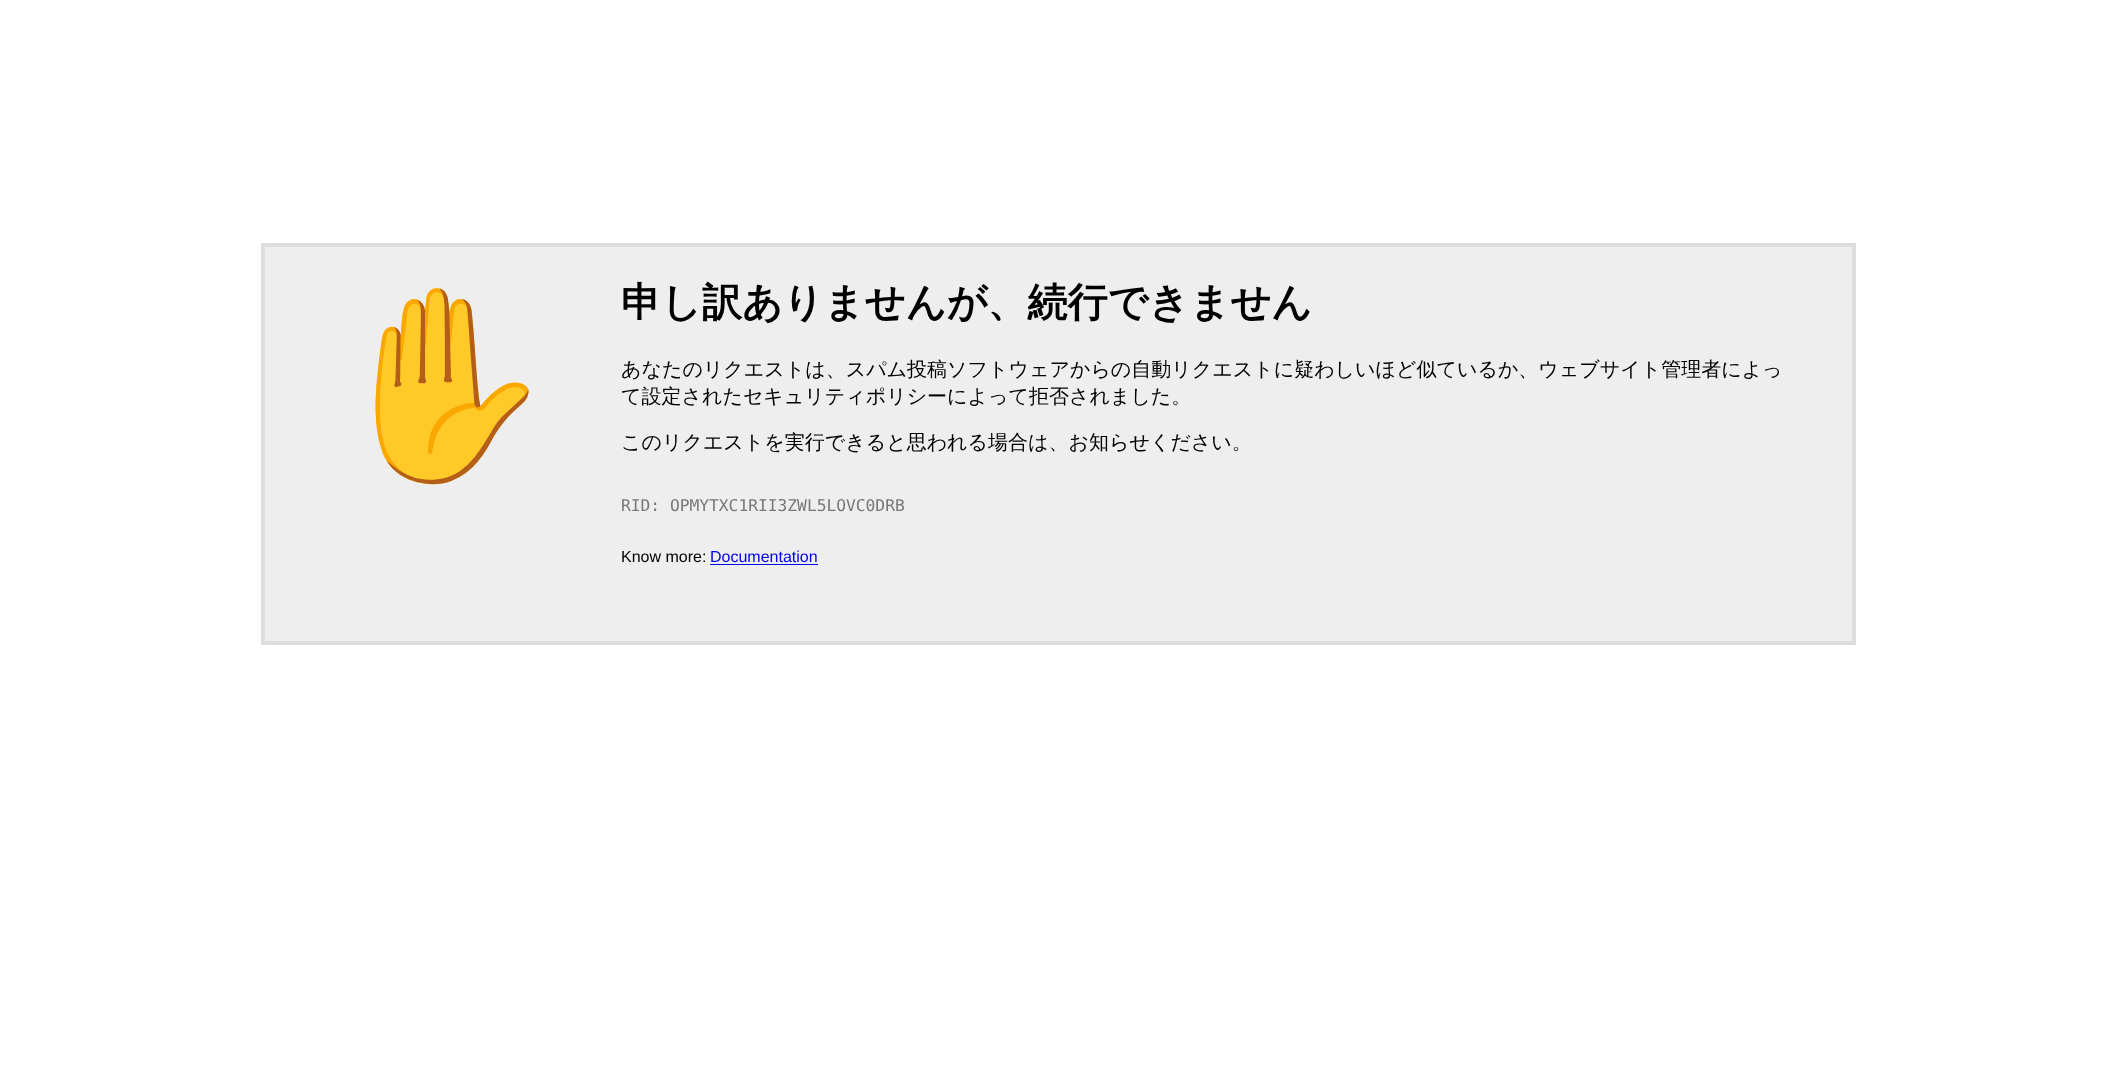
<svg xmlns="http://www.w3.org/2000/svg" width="2117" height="1071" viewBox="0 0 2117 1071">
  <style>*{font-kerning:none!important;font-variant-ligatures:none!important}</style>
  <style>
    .t1 { font: 188px Noto Color Emoji; fill: #f00; }
    .t2 { font: bold 40px WenQuanYi Zen Hei; fill: #000; }
    .t3 { font: 500 20px WenQuanYi Zen Hei; fill: #000; }
    .t4 { font: 16.25px DejaVu Sans Mono; fill: #777; }
    .t5 { font: 16px Liberation Sans; fill: #000; }
    .t6 { font: 16px Liberation Sans; fill: #00e; }
  </style>
  <rect width="100%" height="100%" fill="#fff"/>
  <rect x="263" y="245" width="1591" height="398" fill="#eee" stroke="#ddd" stroke-width="4"/>
  <text x="325" y="450" class="t1">✋</text>
  <text x="621" y="316" class="t2">申し訳ありませんが、続行できません</text>
  <text x="621" y="376" class="t3">あなたのリクエストは、スパム投稿ソフトウェアからの自動リクエストに疑わしいほど似ているか、ウェブサイト管理者によっ</text>
  <text x="621" y="403" class="t3">て設定されたセキュリティポリシーによって拒否されました。</text>
  <text x="621" y="449" class="t3">このリクエストを実行できると思われる場合は、お知らせください。</text>
  <text x="621" y="511" class="t4">RID: OPMYTXC1RII3ZWL5LOVC0DRB</text>
  <text x="621" y="562" class="t5">Know more:</text>
  <text x="710" y="562" class="t6">Documentation</text>
  <rect x="710" y="564" width="108" height="1" fill="#00e"/>
</svg>
